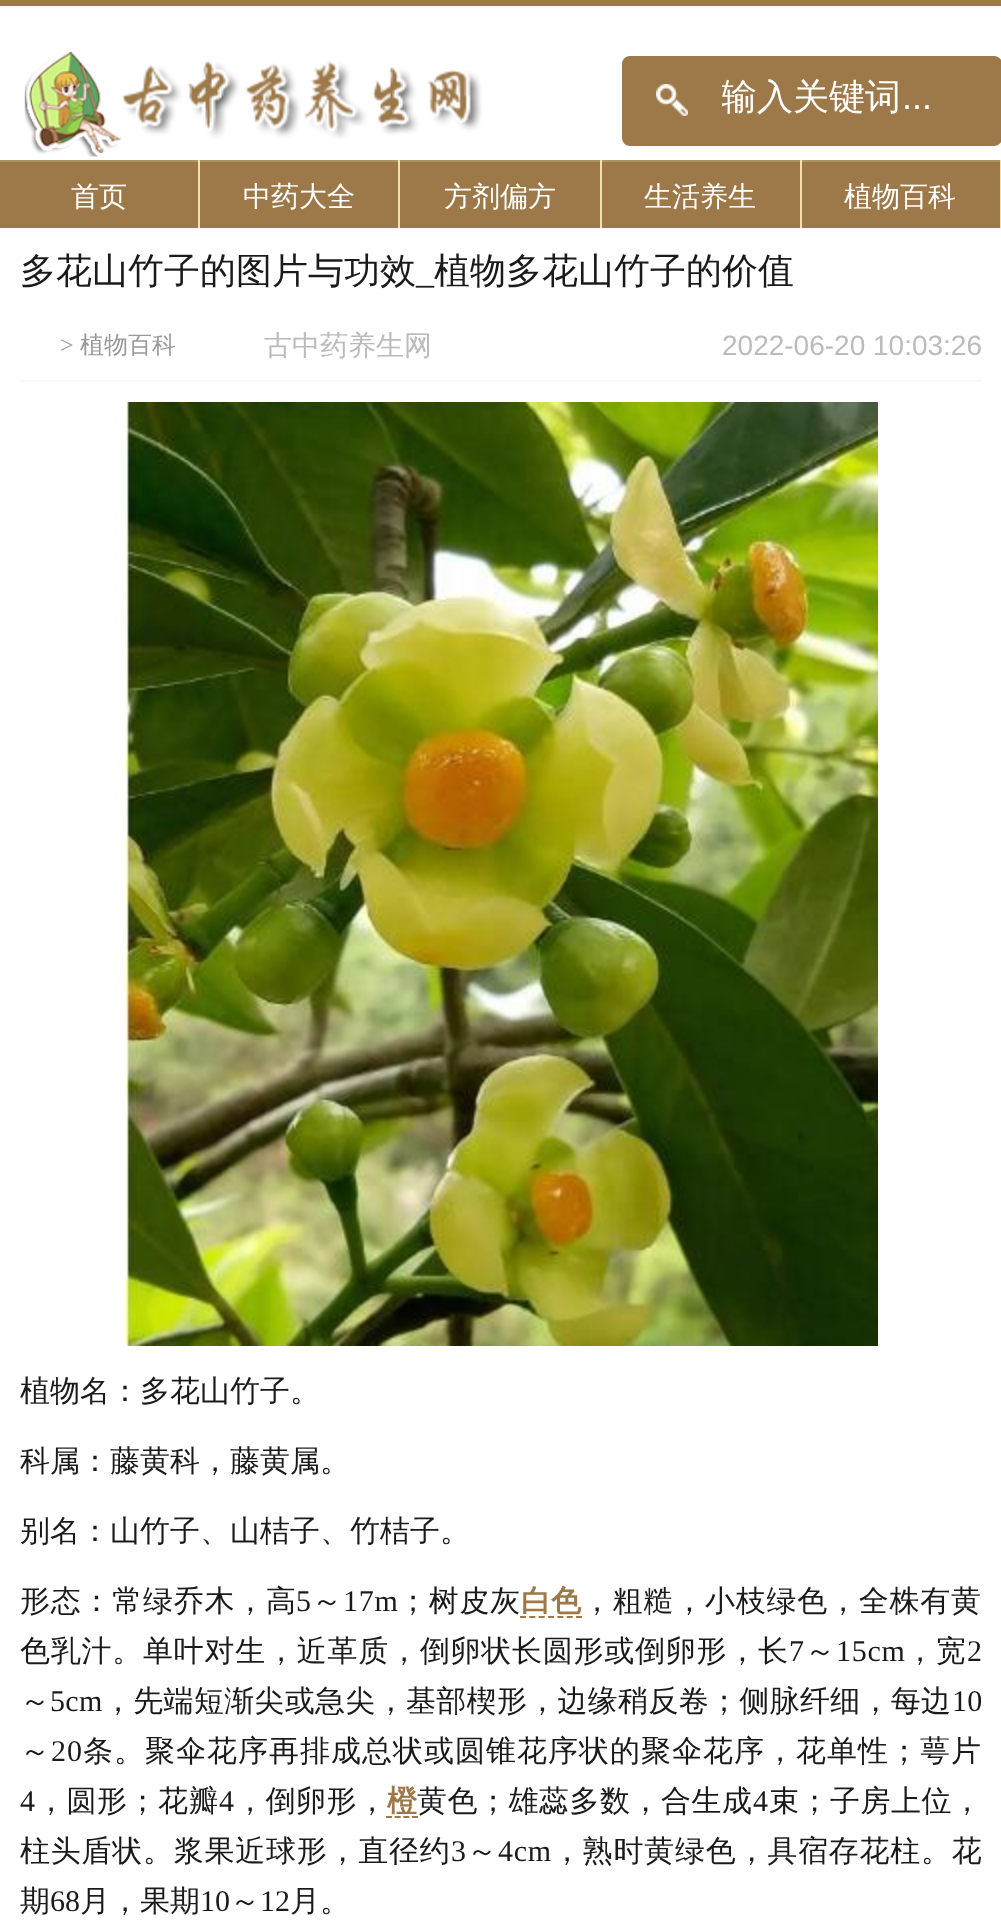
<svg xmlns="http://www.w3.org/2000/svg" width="1001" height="1922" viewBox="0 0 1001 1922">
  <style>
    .t1 { font: 500 36px WenQuanYi Zen Hei; fill: #fff; }
    .t2 { font: 36px Liberation Sans; fill: #fff; }
    .t3 { font: 500 28px WenQuanYi Zen Hei; fill: #fff; }
    .t4 { font: 500 36px WenQuanYi Zen Hei; fill: #1a1a1a; }
    .t5 { font: 36px Liberation Serif; fill: #1a1a1a; }
    .t6 { font: 24px Liberation Serif; fill: #999; }
    .t7 { font: 500 24px WenQuanYi Zen Hei; fill: #999; }
    .t8 { font: 500 28px WenQuanYi Zen Hei; fill: #bbb; }
    .t9 { font: 28px Liberation Sans; fill: #bbb; }
    .t10 { font: 500 30px WenQuanYi Zen Hei; fill: #1a1a1a; }
    .t11 { font: 500 30px WenQuanYi Zen Hei; letter-spacing: 0.75px; fill: #1a1a1a; }
    .t12 { font: 30px Liberation Serif; letter-spacing: 0.75px; fill: #1a1a1a; }
    .t13 { font: bold 30px WenQuanYi Zen Hei; fill: #9d7949; }
    .t14 { font: 500 30px WenQuanYi Zen Hei; letter-spacing: 0.3px; fill: #1a1a1a; }
    .t15 { font: 30px Liberation Serif; letter-spacing: 0.3px; fill: #1a1a1a; }
    .t16 { font: 500 30px WenQuanYi Zen Hei; letter-spacing: 1px; fill: #1a1a1a; }
    .t17 { font: 30px Liberation Serif; letter-spacing: 1px; fill: #1a1a1a; }
    .t18 { font: 30px Liberation Serif; letter-spacing: 0.5px; fill: #1a1a1a; }
    .t19 { font: 500 30px WenQuanYi Zen Hei; letter-spacing: 0.5px; fill: #1a1a1a; }
    .t20 { font: 30px Liberation Serif; fill: #1a1a1a; }
  </style>
  <defs>
    <clipPath id="clip1"><rect x="722" y="72" width="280" height="48"/></clipPath>
  </defs>
  <rect width="100%" height="100%" fill="#fff"/>
  <rect x="0" y="0" width="1001" height="6" fill="#9d7949"/>
  <image x="24" y="51" width="97" height="106" href="images/1.png"/>
  <image x="121" y="61" width="361" height="78" href="images/2.png"/>
  <rect x="622" y="56" width="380" height="90" rx="8" fill="#9d7949"/>
  <image x="656" y="84" width="32" height="32" href="images/3.png"/>
  <g clip-path="url(#clip1)">
    <text x="721" y="109" class="t1">输入关键词</text>
  </g>
  <text x="902" y="109" class="t2">...</text>
  <rect x="0" y="162" width="1000" height="66" fill="#9d7949"/>
  <rect x="0" y="160" width="1001" height="2" fill="#a99663"/>
  <rect x="198" y="160" width="2" height="70" fill="#f6e1ae"/>
  <rect x="198" y="228" width="2" height="2" fill="#fff"/>
  <text x="71" y="206" class="t3">首页</text>
  <rect x="398" y="160" width="2" height="70" fill="#f6e1ae"/>
  <rect x="398" y="228" width="2" height="2" fill="#fff"/>
  <text x="243" y="206" class="t3">中药大全</text>
  <rect x="600" y="160" width="2" height="70" fill="#f6e1ae"/>
  <rect x="600" y="228" width="2" height="2" fill="#fff"/>
  <text x="444" y="206" class="t3">方剂偏方</text>
  <rect x="800" y="160" width="2" height="70" fill="#f6e1ae"/>
  <rect x="800" y="228" width="2" height="2" fill="#fff"/>
  <text x="644" y="206" class="t3">生活养生</text>
  <rect x="1000" y="160" width="1" height="70" fill="#f6e1ae"/>
  <rect x="1000" y="228" width="1" height="2" fill="#fff"/>
  <text x="844" y="206" class="t3">植物百科</text>
  <text x="20" y="283" class="t4">多花山竹子的图片与功效</text>
  <text x="416" y="283" class="t5">_</text>
  <text x="434" y="283" class="t4">植物多花山竹子的价值</text>
  <rect x="20" y="380" width="962" height="2" fill="#f8f8f8"/>
  <text x="60" y="353" class="t6">&gt;</text>
  <text x="80" y="353" class="t7">植物百科</text>
  <text x="264" y="355" class="t8">古中药养生网</text>
  <text x="722" y="355" class="t9">2022-06-20 10:03:26</text>
  <image x="126" y="402" width="752" height="944" href="images/4.png"/>
  <text x="20" y="1401" class="t10">植物名：多花山竹子。</text>
  <text x="20" y="1471" class="t10">科属：藤黄科，藤黄属。</text>
  <text x="20" y="1541" class="t10">别名：山竹子、山桔子、竹桔子。</text>
  <text x="20" y="1611" class="t11">形态：常绿乔木，高</text>
  <text x="296" y="1611" class="t12">5</text>
  <text x="312" y="1611" class="t11">～</text>
  <text x="343" y="1611" class="t12">17m</text>
  <text x="398" y="1611" class="t11">；树皮灰</text>
  <text x="521" y="1611" class="t13">白色</text>
  <path d="M520 1617H582" fill="none" stroke="#9d7949" stroke-width="2" stroke-dasharray="6 3.34"/>
  <text x="582" y="1611" class="t11">，粗糙，小枝绿色，全株有黄</text>
  <text x="20" y="1661" class="t11">色乳汁。单叶对生，近革质，倒卵状长圆形或倒卵形，长</text>
  <text x="789" y="1661" class="t12">7</text>
  <text x="805" y="1661" class="t11">～</text>
  <text x="836" y="1661" class="t12">15cm</text>
  <text x="905" y="1661" class="t11">，宽</text>
  <text x="967" y="1661" class="t12">2</text>
  <text x="20" y="1711" class="t14">～</text>
  <text x="50" y="1711" class="t15">5cm</text>
  <text x="103" y="1711" class="t14">，先端短渐尖或急尖，基部楔形，边缘稍反卷；侧脉纤细，每边</text>
  <text x="952" y="1711" class="t15">10</text>
  <text x="20" y="1761" class="t16">～</text>
  <text x="51" y="1761" class="t17">20</text>
  <text x="83" y="1761" class="t16">条。聚伞花序再排成总状或圆锥花序状的聚伞花序，花单性；萼片</text>
  <text x="20" y="1811" class="t18">4</text>
  <text x="36" y="1811" class="t19">，圆形；花瓣</text>
  <text x="219" y="1811" class="t18">4</text>
  <text x="235" y="1811" class="t19">，倒卵形，</text>
  <text x="387" y="1811" class="t13">橙</text>
  <path d="M386 1817H418" fill="none" stroke="#9d7949" stroke-width="2" stroke-dasharray="6 2.66"/>
  <text x="417" y="1811" class="t19">黄色；雄蕊多数，合生成</text>
  <text x="753" y="1811" class="t18">4</text>
  <text x="769" y="1811" class="t19">束；子房上位，</text>
  <text x="20" y="1861" class="t11">柱头盾状。浆果近球形，直径约</text>
  <text x="451" y="1861" class="t12">3</text>
  <text x="467" y="1861" class="t11">～</text>
  <text x="498" y="1861" class="t12">4cm</text>
  <text x="552" y="1861" class="t11">，熟时黄绿色，具宿存花柱。花</text>
  <text x="20" y="1911" class="t10">期</text>
  <text x="50" y="1911" class="t20">68</text>
  <text x="80" y="1911" class="t10">月，果期</text>
  <text x="200" y="1911" class="t20">10</text>
  <text x="230" y="1911" class="t10">～</text>
  <text x="260" y="1911" class="t20">12</text>
  <text x="290" y="1911" class="t10">月。</text>
</svg>
